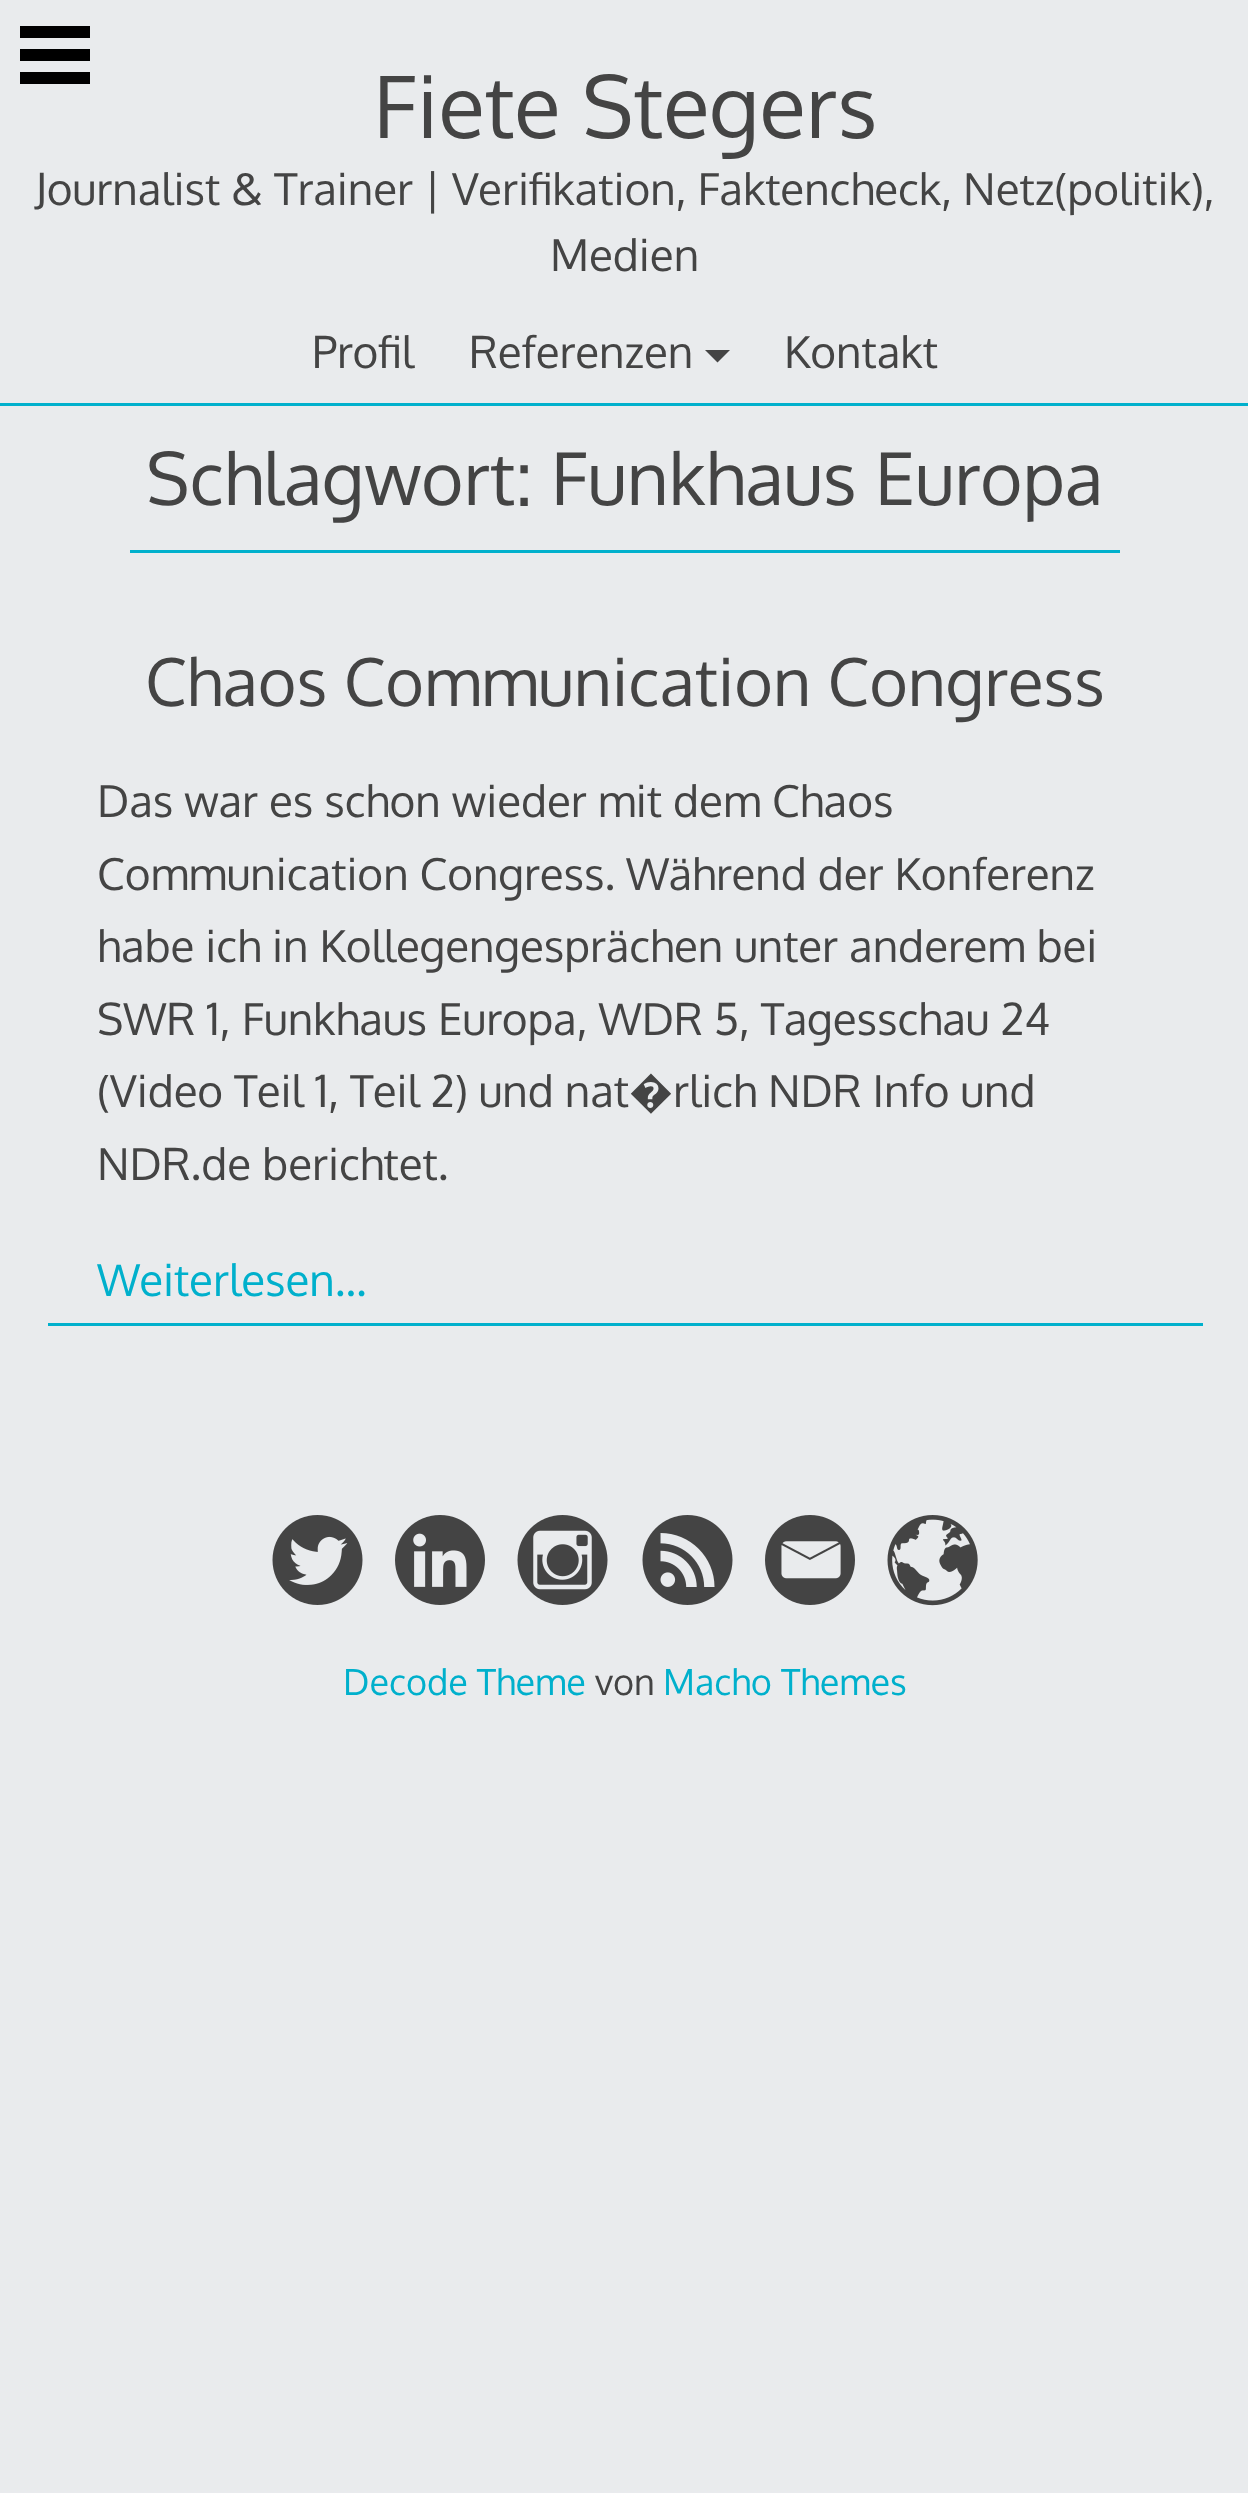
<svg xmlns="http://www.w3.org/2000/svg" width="1248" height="2493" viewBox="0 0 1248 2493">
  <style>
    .t1 { font: 86px Oxygen; fill: #444; }
    .t2 { font: 44px Oxygen; fill: #444; }
    .t3 { font: 72.6px Oxygen; fill: #444; }
    .t4 { font: 66px Oxygen; fill: #444; }
    .t5 { font: 300 44px Noto Sans; fill: #444; }
    .t6 { font: 44px Oxygen; fill: #00b0cc; }
    .t7 { font: 36px Oxygen; fill: #00b0cc; }
    .t8 { font: 36px Oxygen; fill: #444; }
  </style>
  <rect width="100%" height="100%" fill="#e9ebed"/>
  <rect x="20" y="26" width="70" height="12" fill="#000"/>
  <rect x="20" y="49" width="70" height="12" fill="#000"/>
  <rect x="20" y="72" width="70" height="12" fill="#000"/>
  <rect x="0" y="403" width="1248" height="3" fill="#00b0cc"/>
  <text x="373" y="138" class="t1">Fiete Stegers</text>
  <text x="35" y="205" class="t2">Journalist &amp; Trainer | Verifikation, Faktencheck, Netz(politik),</text>
  <text x="550" y="271" class="t2">Medien</text>
  <text x="312" y="368" class="t2">Profil</text>
  <text x="469" y="368" class="t2">Referenzen</text>
  <path d="M705 350H730L717.5 362.5Z" fill="#444"/>
  <text x="784" y="368" class="t2">Kontakt</text>
  <rect x="130" y="550" width="990" height="3" fill="#00b0cc"/>
  <text x="146" y="505" class="t3">Schlagwort: Funkhaus Europa</text>
  <text x="145" y="706" class="t4">Chaos Communication Congress</text>
  <text x="97" y="817" class="t2">Das war es schon wieder mit dem Chaos</text>
  <text x="97" y="890" class="t2">Communication Congress. Während der Konferenz</text>
  <text x="97" y="962" class="t2">habe ich in Kollegengesprächen unter anderem bei</text>
  <text x="97" y="1035" class="t2">SWR 1, Funkhaus Europa, WDR 5, Tagesschau 24</text>
  <text x="97" y="1107" class="t2">(Video Teil 1, Teil 2) und nat</text>
  <text x="629" y="1107" class="t5">�</text>
  <text x="673" y="1107" class="t2">rlich NDR Info und</text>
  <text x="97" y="1180" class="t2">NDR.de berichtet.</text>
  <rect x="48" y="1323" width="1155" height="3" fill="#00b0cc"/>
  <text x="97" y="1296" class="t6">Weiterlesen…</text>
  <image x="272" y="1515" width="91" height="90" href="images/1.png"/>
  <image x="395" y="1515" width="90" height="90" href="images/2.png"/>
  <image x="517" y="1515" width="91" height="90" href="images/3.png"/>
  <image x="642" y="1515" width="91" height="90" href="images/4.png"/>
  <image x="765" y="1515" width="90" height="90" href="images/5.png"/>
  <image x="887" y="1515" width="91" height="91" href="images/6.png"/>
  <text x="343" y="1695" class="t7">Decode Theme</text>
  <text x="595" y="1695" class="t8">von</text>
  <text x="663" y="1695" class="t7">Macho Themes</text>
</svg>
